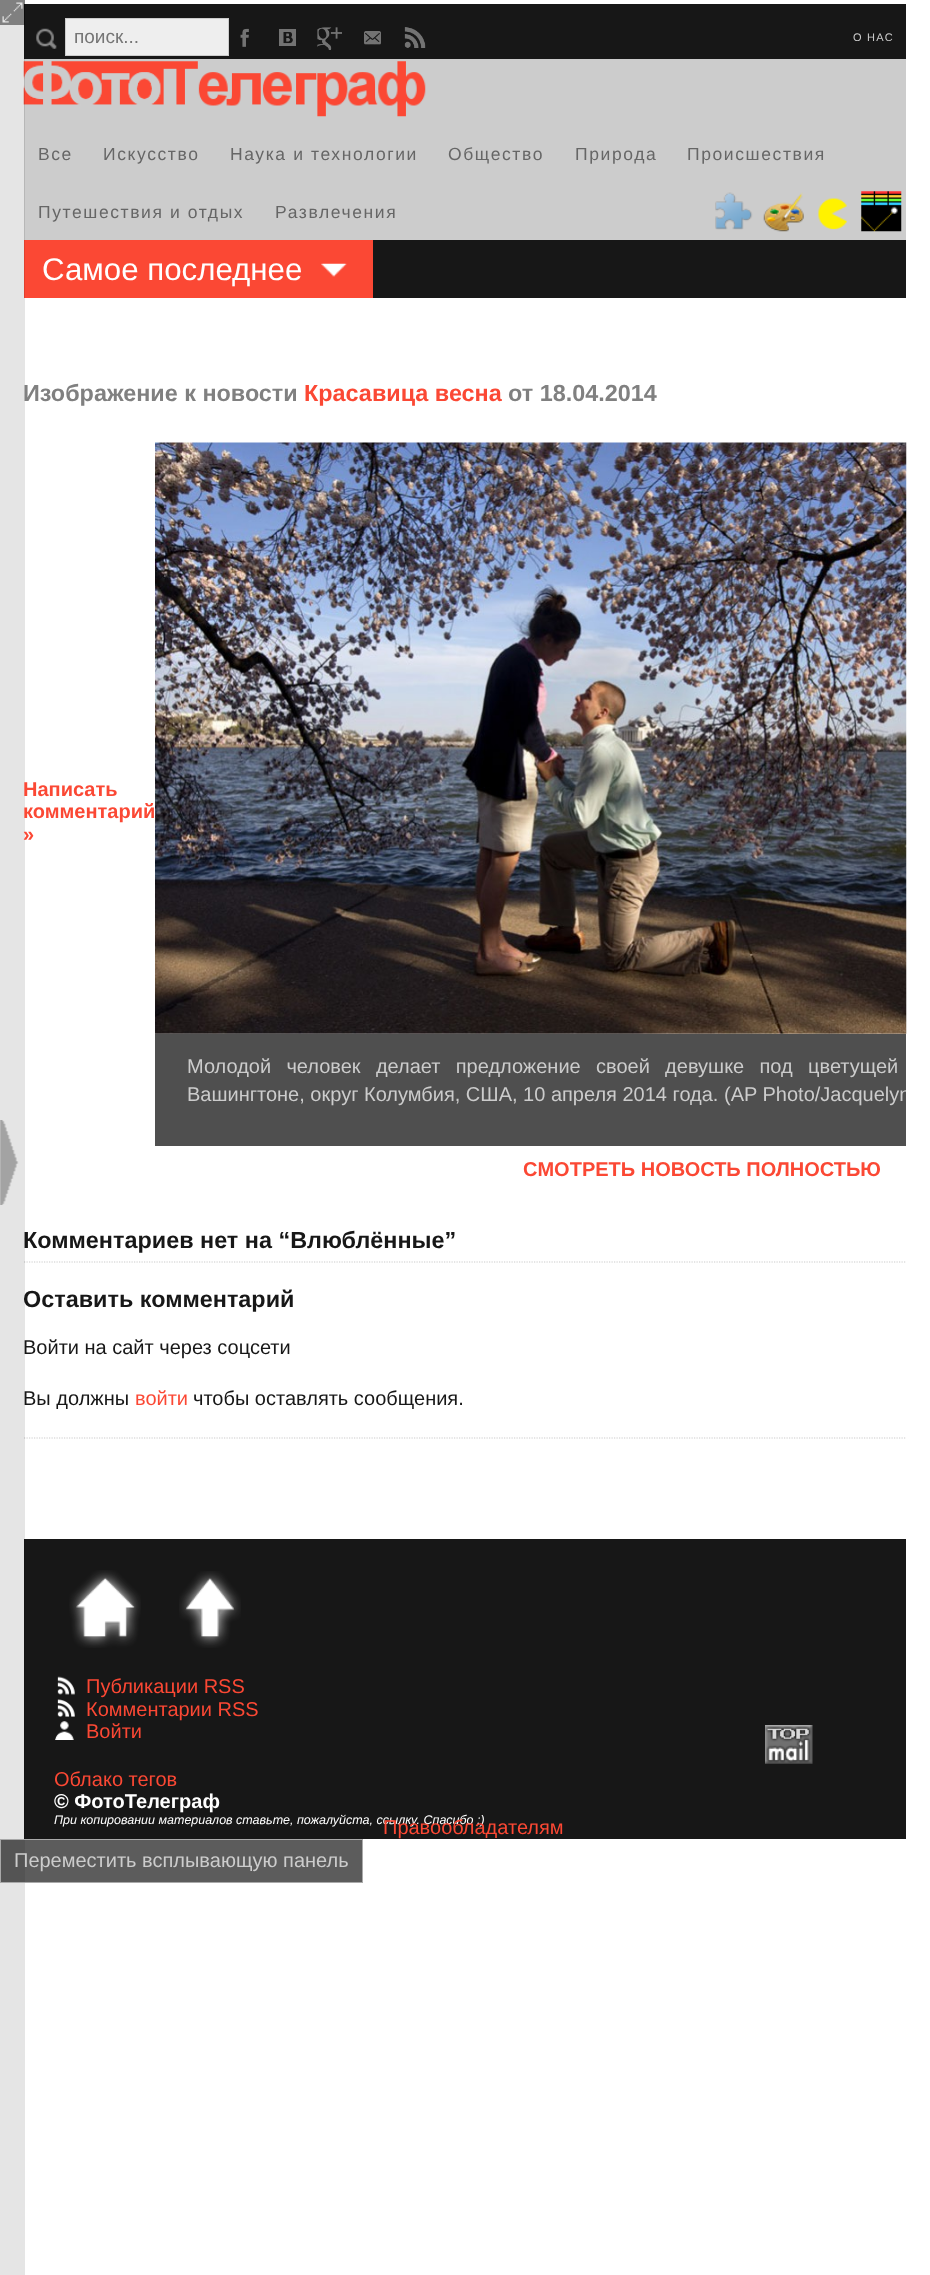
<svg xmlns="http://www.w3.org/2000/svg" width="930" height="2275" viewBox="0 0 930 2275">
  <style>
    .t1 { font: 19px Liberation Sans; fill: #757575; }
    .t2 { font: 11px Liberation Sans; letter-spacing: 1.25px; fill: #ccc; }
    .t3 { font: 17.5px Liberation Sans; letter-spacing: 1.6px; fill: #666; }
    .t4 { font: 31.25px Liberation Sans; fill: #fff; }
    .t5 { font: bold 23.4px Liberation Sans; fill: #808080; }
    .t6 { font: bold 23.4px Liberation Sans; fill: #fb4834; }
    .t7 { font: bold 20px Liberation Sans; fill: #fb4834; }
    .t8 { font: 20px Liberation Sans; fill: #ccc; }
    .t9 { font: bold 23.4px Liberation Sans; fill: #171717; }
    .t10 { font: 20px Liberation Sans; fill: #171717; }
    .t11 { font: 20px Liberation Sans; fill: #fb4834; }
    .t12 { font: bold 20px Liberation Sans; fill: #fff; }
    .t13 { font: italic 12.5px Liberation Sans; fill: #fff; }
  </style>
  <defs>
    <clipPath id="clip1"><rect x="24" y="294" width="882" height="1245"/></clipPath>
  </defs>
  <rect width="100%" height="100%" fill="#fff"/>
  <rect x="0" y="0" width="25" height="25" fill="#808080"/>
  <image x="2" y="2" width="21" height="21" href="images/1.png"/>
  <rect x="24" y="59" width="882" height="181" fill="#ccc"/>
  <rect x="24" y="4" width="882" height="55" fill="#171717"/>
  <image x="23" y="61" width="403" height="56" href="images/9.png"/>
  <rect x="24" y="240" width="349" height="58" fill="#fb4834"/>
  <path d="M24 1262H906" fill="none" stroke="#ccc" stroke-width="1.2" stroke-dasharray="1.25 1.25"/>
  <path d="M24 1438H906" fill="none" stroke="#ccc" stroke-width="1.2" stroke-dasharray="1.25 1.25"/>
  <rect x="24" y="1539" width="882" height="300" fill="#171717"/>
  <rect x="0" y="25" width="25" height="2250" fill="#0000001a"/>
  <image x="0" y="1120" width="19" height="85" href="images/2.png"/>
  <rect x="24" y="4" width="1" height="21" fill="#0c0c0c"/>
  <image x="36" y="28" width="21" height="21" href="images/3.png"/>
  <rect x="65.5" y="18.5" width="163" height="37" fill="#eee" stroke="#ccc"/>
  <text x="74" y="43" class="t1">поиск...</text>
  <image x="240" y="28" width="9" height="19" href="images/4.png"/>
  <image x="279" y="29" width="17" height="17" href="images/5.png"/>
  <image x="317" y="27" width="25" height="23" href="images/6.png"/>
  <image x="364" y="31" width="17" height="14" href="images/7.png"/>
  <image x="404" y="27" width="22" height="21" href="images/8.png"/>
  <text x="853" y="41" class="t2">О НАС</text>
  <text x="38" y="160" class="t3">Все</text>
  <text x="103" y="160" class="t3">Искусство</text>
  <text x="230" y="160" class="t3">Наука и технологии</text>
  <text x="448" y="160" class="t3">Общество</text>
  <text x="575" y="160" class="t3">Природа</text>
  <text x="687" y="160" class="t3">Происшествия</text>
  <text x="38" y="218" class="t3">Путешествия и отдых</text>
  <text x="275" y="218" class="t3">Развлечения</text>
  <rect x="373" y="240" width="533" height="58" fill="#171717"/>
  <image x="715" y="192" width="38" height="38" href="images/10.png"/>
  <image x="763" y="192" width="41" height="40" href="images/11.png"/>
  <image x="818" y="198" width="29" height="32" href="images/12.png"/>
  <image x="861" y="191" width="41" height="41" href="images/13.png"/>
  <image x="321" y="263" width="26" height="14" href="images/14.png"/>
  <text x="42" y="280" class="t4">Самое последнее</text>
  <text x="23" y="401" class="t5">Изображение к новости</text>
  <text x="304" y="401" class="t6">Красавица весна</text>
  <text x="508" y="401" class="t5">от 18.04.2014</text>
  <text x="23" y="796" class="t7">Написать</text>
  <text x="23" y="818" class="t7">комментарий</text>
  <text x="23" y="841" class="t7">»</text>
  <image x="155" y="442" width="752" height="592" href="images/15.png"/>
  <rect x="155" y="1034" width="751" height="112" fill="#4f4f4f"/>
  <text x="187" y="1073" word-spacing="9.75" class="t8">Молодой человек делает предложение своей девушке под цветущей</text>
  <g clip-path="url(#clip1)">
    <text x="187" y="1101" class="t8">Вашингтоне, округ Колумбия, США, 10 апреля 2014 года. (AP Photo/Jacquelyn</text>
  </g>
  <text x="523" y="1176" class="t7">CМОТРЕТЬ НОВОСТЬ ПОЛНОСТЬЮ</text>
  <text x="23" y="1248" class="t9">Комментариев нет на “Влюблённые”</text>
  <text x="23" y="1307" class="t9">Оставить комментарий</text>
  <text x="23" y="1354" class="t10">Войти на сайт через соцсети</text>
  <text x="23" y="1405" class="t10">Вы должны</text>
  <text x="135" y="1405" class="t11">войти</text>
  <text x="193" y="1405" class="t10">чтобы оставлять сообщения.</text>
  <image x="69" y="1570" width="72" height="78" href="images/16.png"/>
  <image x="179" y="1571" width="62" height="77" href="images/17.png"/>
  <image x="57" y="1676" width="18" height="19" href="images/18.png"/>
  <text x="86" y="1693" class="t11">Публикации RSS</text>
  <image x="57" y="1699" width="18" height="18" href="images/19.png"/>
  <text x="86" y="1716" class="t11">Комментарии RSS</text>
  <image x="55" y="1721" width="19" height="19" href="images/20.png"/>
  <text x="86" y="1738" class="t11">Войти</text>
  <image x="765" y="1725" width="48" height="39" href="images/21.png"/>
  <text x="54" y="1786" class="t11">Облако тегов</text>
  <text x="54" y="1808" class="t12">© ФотоТелеграф</text>
  <text x="54" y="1824" class="t13">При копировании материалов ставьте, пожалуйста, ссылку. Спасибо :)</text>
  <text x="383" y="1834" class="t11">Правообладателям</text>
  <rect x="0" y="1839" width="363" height="44" fill="#171717b3"/>
  <rect x="0.5" y="1839.5" width="362" height="43" fill="none" stroke="#ccccccb3"/>
  <text x="14" y="1867" class="t8">Переместить всплывающую панель</text>
</svg>
